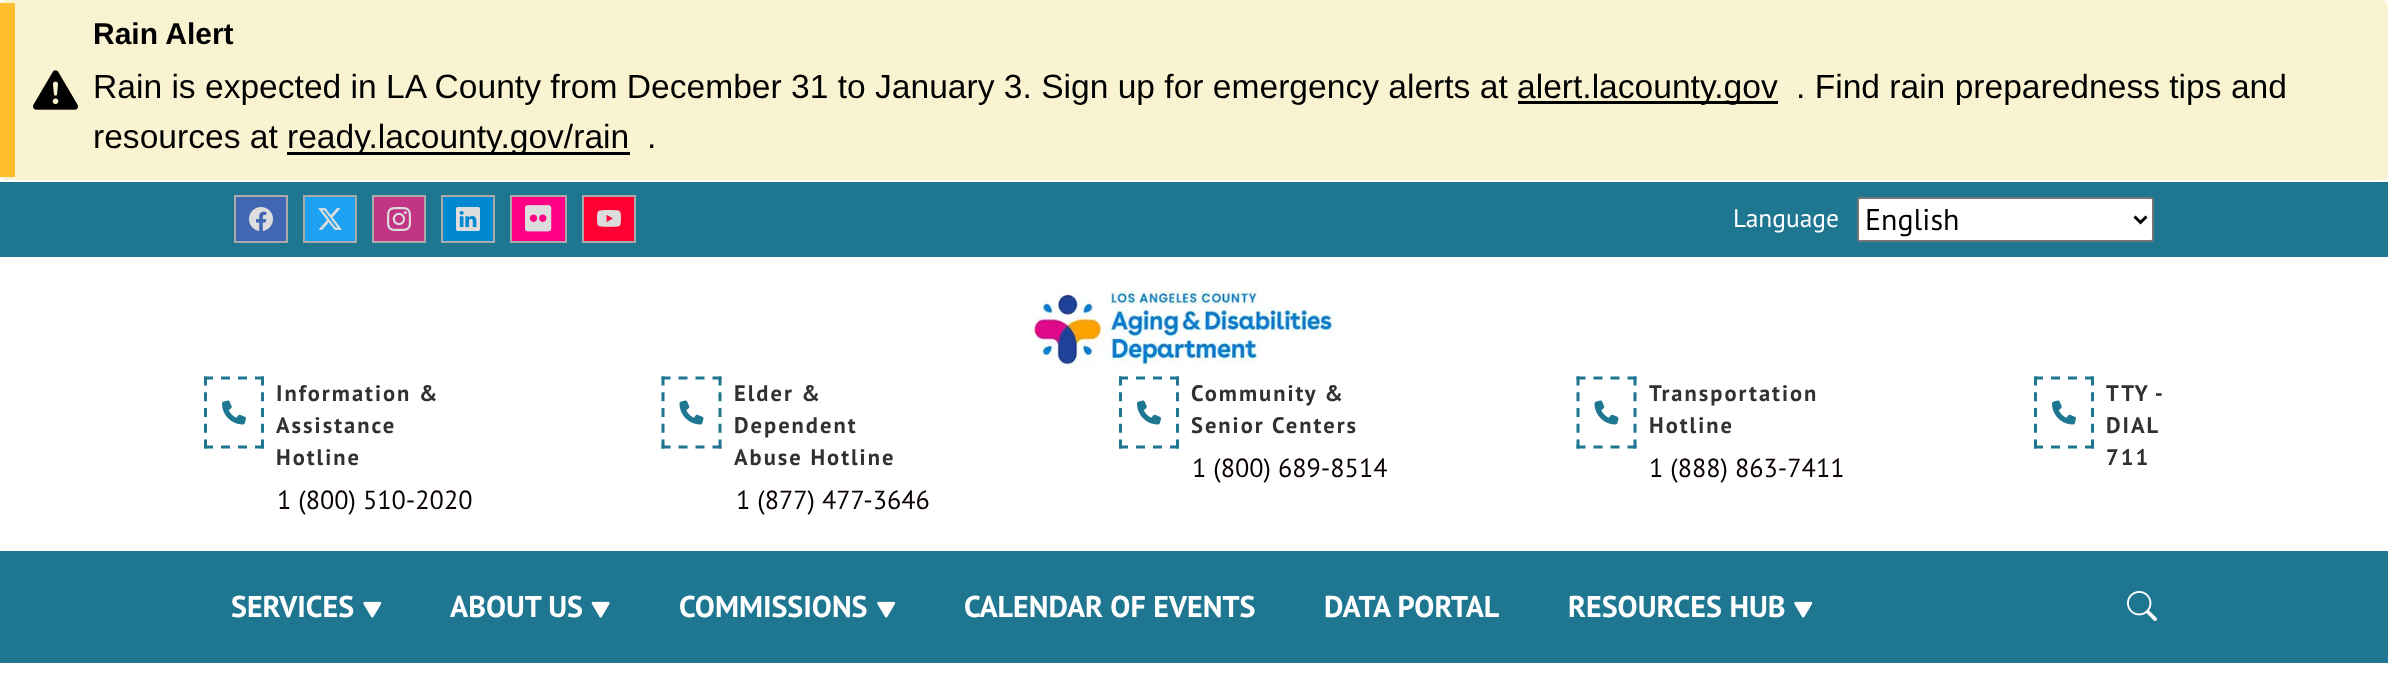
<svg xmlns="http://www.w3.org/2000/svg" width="2388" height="694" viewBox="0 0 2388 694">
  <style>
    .t1 { font: bold 30px Liberation Sans; fill: #000; }
    .t2 { font: 33.6px Liberation Sans; fill: #000; }
    .t3 { font: 25.5px PT Sans; fill: #fff; }
    .t4 { font: 30px PT Sans; fill: #000; }
    .t5 { font: bold 22.5px PT Sans; letter-spacing: 2px; fill: #313131; }
    .t6 { font: 26.25px PT Sans; fill: #0a0000; }
    .t7 { font: bold 30px PT Sans; fill: #fff; }
  </style>
  <rect width="100%" height="100%" fill="#fff"/>
  <rect x="0" y="0" width="2388" height="180" rx="6" fill="#faf3d1"/>
  <rect x="0" y="3" width="15" height="174" fill="#ffbe2e"/>
  <image x="33" y="70" width="45" height="40" href="images/1.png"/>
  <text x="93" y="44" class="t1">Rain Alert</text>
  <text x="93" y="98" class="t2">Rain is expected in LA County from December 31 to January 3. Sign up for emergency alerts at</text>
  <rect x="1518" y="101" width="260" height="3" fill="#000"/>
  <text x="1517" y="98" class="t2">alert.lacounty.gov</text>
  <text x="1796" y="98" class="t2">. Find rain preparedness tips and</text>
  <text x="93" y="148" class="t2">resources at</text>
  <rect x="287" y="152" width="343" height="3" fill="#000"/>
  <text x="287" y="148" class="t2">ready.lacounty.gov/rain</text>
  <text x="647" y="148" class="t2">.</text>
  <rect x="0" y="182" width="2388" height="75" fill="#1e7691"/>
  <rect x="235" y="196" width="52" height="46" fill="#4267b2" stroke="#aaa" stroke-width="2"/>
  <image x="249" y="207" width="24" height="24" href="images/2.png"/>
  <rect x="304" y="196" width="52" height="46" fill="#1da1f2" stroke="#aaa" stroke-width="2"/>
  <image x="318" y="208" width="24" height="22" href="images/3.png"/>
  <rect x="373" y="196" width="52" height="46" fill="#c13584" stroke="#aaa" stroke-width="2"/>
  <image x="387" y="207" width="24" height="24" href="images/4.png"/>
  <rect x="442" y="196" width="52" height="46" fill="#0288d1" stroke="#aaa" stroke-width="2"/>
  <image x="456" y="207" width="24" height="24" href="images/5.png"/>
  <rect x="511" y="196" width="55" height="46" fill="#ff0084" stroke="#aaa" stroke-width="2"/>
  <image x="525" y="205" width="27" height="27" href="images/6.png"/>
  <rect x="583" y="196" width="52" height="46" fill="#f03" stroke="#aaa" stroke-width="2"/>
  <image x="597" y="209" width="24" height="18" href="images/7.png"/>
  <text x="1733" y="227" class="t3">Language</text>
  <rect x="1858" y="198" width="295" height="43" rx="2" fill="#fff" stroke="#767676" stroke-width="2"/>
  <path d="M2134.5 216.5L2140.5 222.5L2146.5 216.5" fill="none" stroke="#000" stroke-width="3"/>
  <text x="1865" y="230" class="t4">English</text>
  <image x="1029" y="290" width="306" height="79" href="images/8.png"/>
  <path d="M204 378H264" fill="none" stroke="#1e7691" stroke-width="3" stroke-dasharray="9 8"/>
  <path d="M262.5 376.5V448.5" fill="none" stroke="#1e7691" stroke-width="3" stroke-dasharray="9 6.75"/>
  <path d="M204 447H264" fill="none" stroke="#1e7691" stroke-width="3" stroke-dasharray="9 8"/>
  <path d="M205.5 376.5V448.5" fill="none" stroke="#1e7691" stroke-width="3" stroke-dasharray="9 6.75"/>
  <image x="222" y="400" width="24" height="25" href="images/9.png"/>
  <text x="276" y="401" class="t5">Information &amp;</text>
  <text x="276" y="433" class="t5">Assistance</text>
  <text x="276" y="465" class="t5">Hotline</text>
  <text x="277" y="509" class="t6">1 (800) 510-2020</text>
  <path d="M661.5 378H721.5" fill="none" stroke="#1e7691" stroke-width="3" stroke-dasharray="9 8"/>
  <path d="M720 376.5V448.5" fill="none" stroke="#1e7691" stroke-width="3" stroke-dasharray="9 6.75"/>
  <path d="M661.5 447H721.5" fill="none" stroke="#1e7691" stroke-width="3" stroke-dasharray="9 8"/>
  <path d="M663 376.5V448.5" fill="none" stroke="#1e7691" stroke-width="3" stroke-dasharray="9 6.75"/>
  <image x="679" y="400" width="25" height="25" href="images/10.png"/>
  <text x="734" y="401" class="t5">Elder &amp;</text>
  <text x="734" y="433" class="t5">Dependent</text>
  <text x="734" y="465" class="t5">Abuse Hotline</text>
  <text x="736" y="509" class="t6">1 (877) 477-3646</text>
  <path d="M1119 378H1179" fill="none" stroke="#1e7691" stroke-width="3" stroke-dasharray="9 8"/>
  <path d="M1177.5 376.5V448.5" fill="none" stroke="#1e7691" stroke-width="3" stroke-dasharray="9 6.75"/>
  <path d="M1119 447H1179" fill="none" stroke="#1e7691" stroke-width="3" stroke-dasharray="9 8"/>
  <path d="M1120.5 376.5V448.5" fill="none" stroke="#1e7691" stroke-width="3" stroke-dasharray="9 6.75"/>
  <image x="1137" y="400" width="24" height="25" href="images/9.png"/>
  <text x="1191" y="401" class="t5">Community &amp;</text>
  <text x="1191" y="433" class="t5">Senior Centers</text>
  <text x="1192" y="477" class="t6">1 (800) 689-8514</text>
  <path d="M1576.5 378H1636.5" fill="none" stroke="#1e7691" stroke-width="3" stroke-dasharray="9 8"/>
  <path d="M1635 376.5V448.5" fill="none" stroke="#1e7691" stroke-width="3" stroke-dasharray="9 6.75"/>
  <path d="M1576.5 447H1636.5" fill="none" stroke="#1e7691" stroke-width="3" stroke-dasharray="9 8"/>
  <path d="M1578 376.5V448.5" fill="none" stroke="#1e7691" stroke-width="3" stroke-dasharray="9 6.75"/>
  <image x="1594" y="400" width="25" height="25" href="images/10.png"/>
  <text x="1649" y="401" class="t5">Transportation</text>
  <text x="1649" y="433" class="t5">Hotline</text>
  <text x="1649" y="477" class="t6">1 (888) 863-7411</text>
  <path d="M2034 378H2094" fill="none" stroke="#1e7691" stroke-width="3" stroke-dasharray="9 8"/>
  <path d="M2092.5 376.5V448.5" fill="none" stroke="#1e7691" stroke-width="3" stroke-dasharray="9 6.75"/>
  <path d="M2034 447H2094" fill="none" stroke="#1e7691" stroke-width="3" stroke-dasharray="9 8"/>
  <path d="M2035.5 376.5V448.5" fill="none" stroke="#1e7691" stroke-width="3" stroke-dasharray="9 6.75"/>
  <image x="2052" y="400" width="24" height="25" href="images/9.png"/>
  <text x="2106" y="401" word-spacing="-1" class="t5">TTY -</text>
  <text x="2106" y="433" class="t5">DIAL</text>
  <text x="2106" y="465" class="t5">711</text>
  <rect x="0" y="551" width="2388" height="112" fill="#1e7691"/>
  <text x="231" y="617" class="t7">SERVICES</text>
  <image x="363" y="601" width="19" height="17" href="images/11.png"/>
  <text x="450" y="617" class="t7">ABOUT US</text>
  <image x="591" y="601" width="19" height="17" href="images/12.png"/>
  <text x="679" y="617" class="t7">COMMISSIONS</text>
  <image x="877" y="601" width="19" height="17" href="images/13.png"/>
  <text x="964" y="617" class="t7">CALENDAR OF EVENTS</text>
  <text x="1324" y="617" class="t7">DATA PORTAL</text>
  <text x="1568" y="617" class="t7">RESOURCES HUB</text>
  <image x="1794" y="601" width="19" height="17" href="images/14.png"/>
  <image x="2127" y="591" width="30" height="30" href="images/15.png"/>
</svg>
